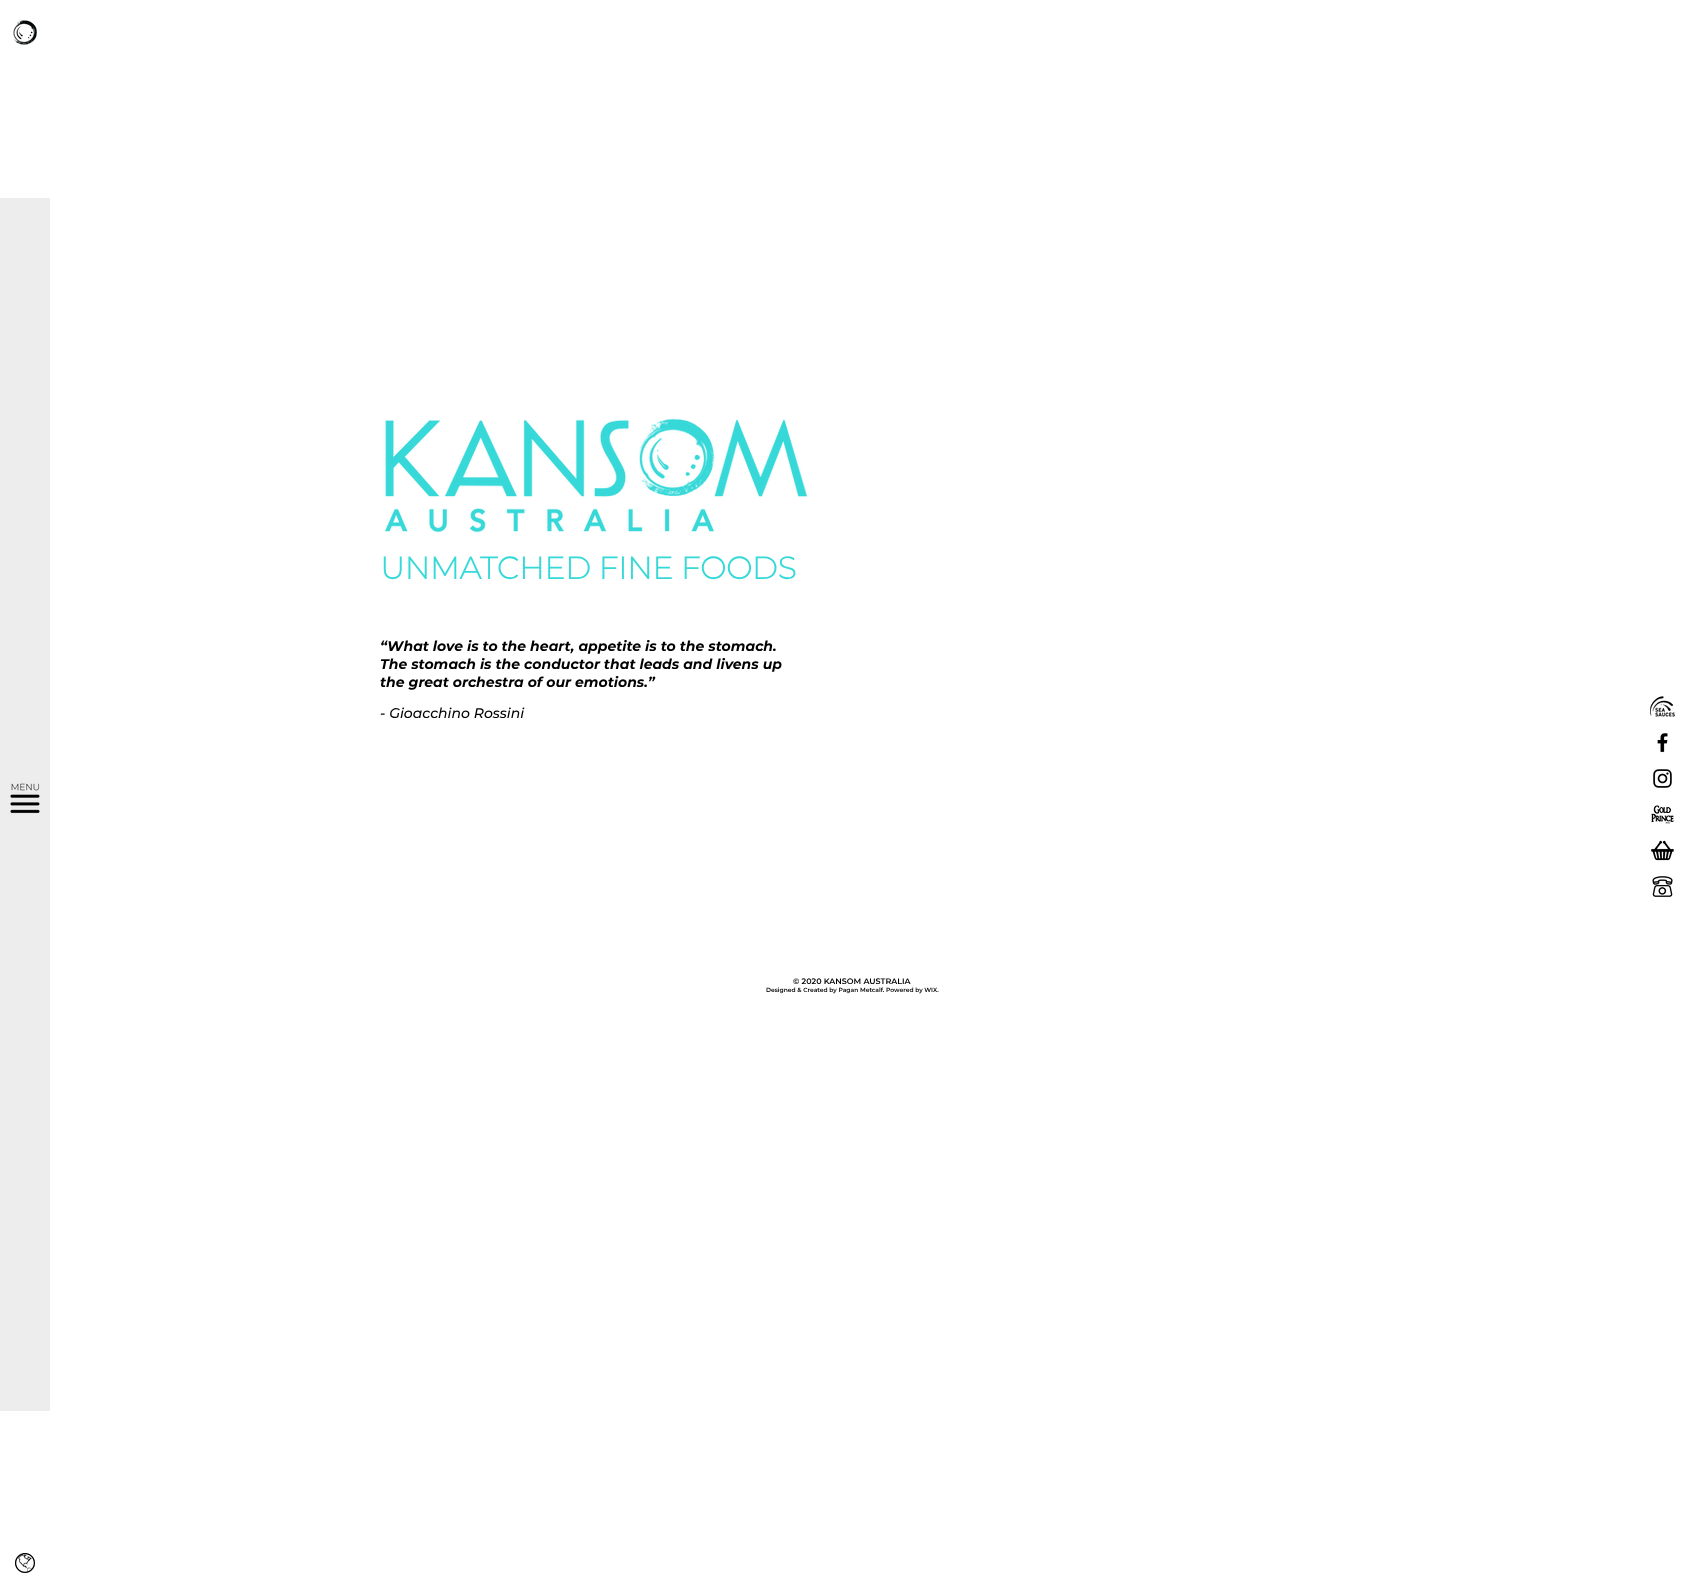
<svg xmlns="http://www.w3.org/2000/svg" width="1704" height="1593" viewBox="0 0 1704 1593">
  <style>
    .t1 { font: bold 31px Montserrat; fill: #36d9d8; }
    .t2 { font: italic bold 14px Montserrat; fill: #000; }
    .t3 { font: italic 500 14px Montserrat; fill: #000; }
    .t4 { font: 600 8px Montserrat; fill: #000; }
    .t5 { font: 600 6px Montserrat; fill: #000; }
  </style>
  <rect width="100%" height="100%" fill="#fff"/>
  <image x="13" y="20" width="24" height="25" href="images/1.png"/>
  <rect x="0" y="198" width="50" height="1213" fill="#ededed"/>
  <image x="10" y="783" width="30" height="31" href="images/2.png"/>
  <image x="383" y="418" width="425" height="115" href="images/3.png"/>
  <text x="380" y="579" class="t1">UNMATCHED FINE FOODS</text>
  <text x="380" y="651" class="t2">“What love is to the heart, appetite is to the stomach.</text>
  <text x="380" y="669" class="t2">The stomach is the conductor that leads and livens up</text>
  <text x="380" y="687" class="t2">the great orchestra of our emotions.”</text>
  <text x="380" y="718" class="t3">- Gioacchino Rossini</text>
  <image x="1650" y="696" width="25" height="21" href="images/4.png"/>
  <image x="1657" y="733" width="11" height="20" href="images/5.png"/>
  <image x="1653" y="769" width="19" height="19" href="images/6.png"/>
  <image x="1651" y="805" width="23" height="19" href="images/7.png"/>
  <image x="1651" y="840" width="23" height="21" href="images/8.png"/>
  <image x="1652" y="876" width="21" height="21" href="images/9.png"/>
  <text x="793" y="984" class="t4">© 2020 KANSOM AUSTRALIA</text>
  <text x="766" y="992" class="t5">Designed &amp; Created by Pagan Metcalf. Powered by WIX.</text>
  <image x="15" y="1553" width="20" height="20" href="images/10.png"/>
</svg>
